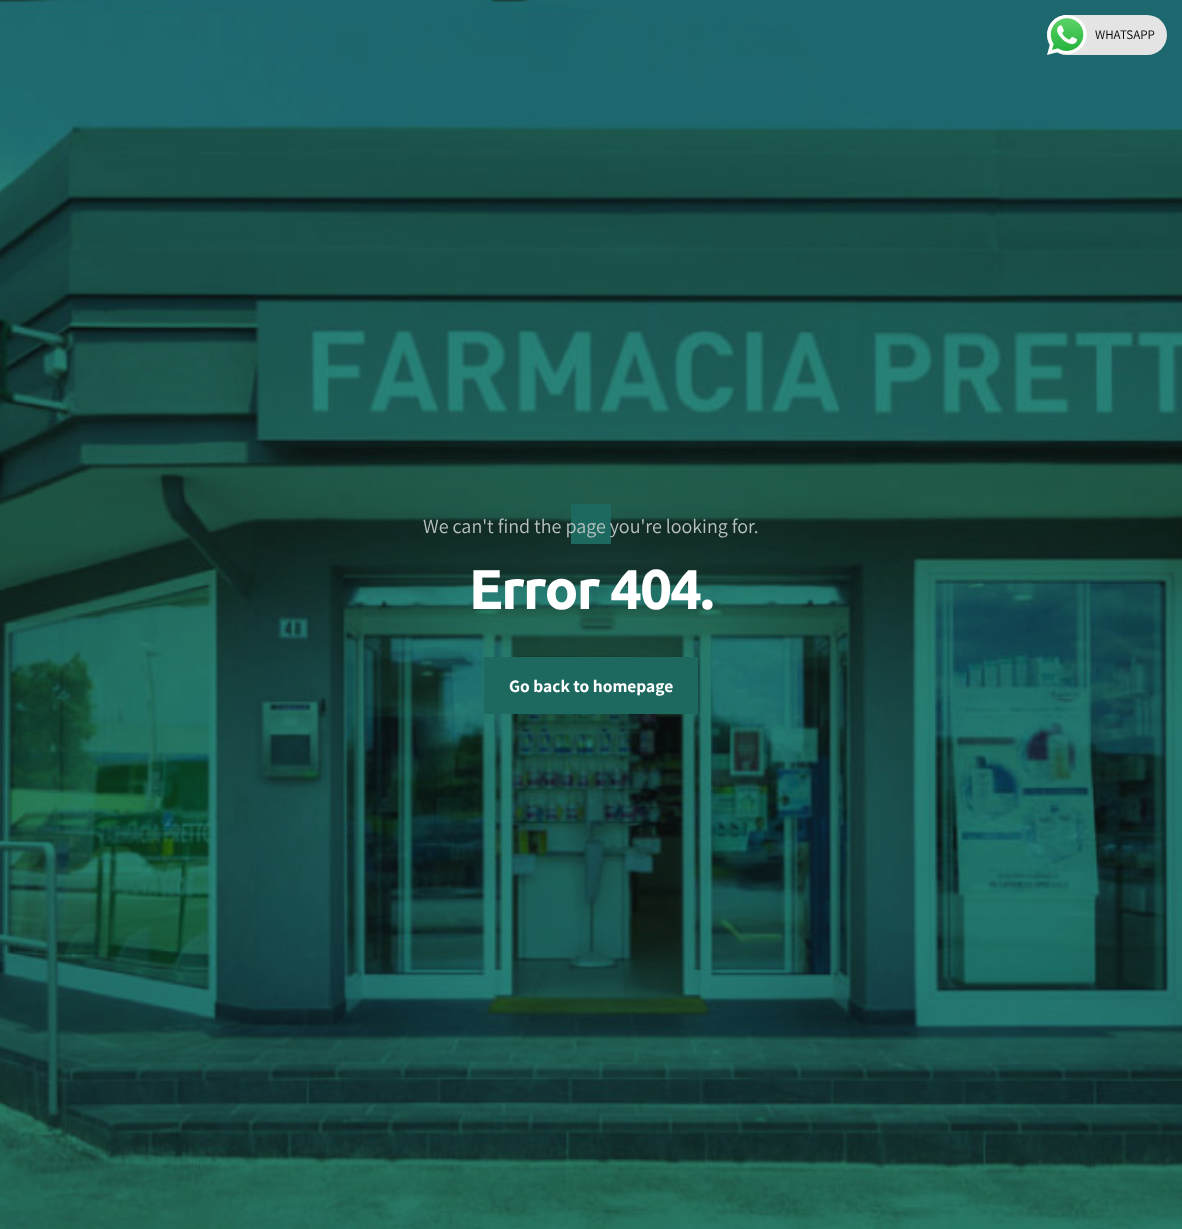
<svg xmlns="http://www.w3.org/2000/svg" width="1182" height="1229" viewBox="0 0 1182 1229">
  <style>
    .t1 { font: 13px Assistant; fill: #000; }
    .t2 { font: 20px Assistant; fill: #b8c2c0; }
    .t3 { font: bold 56px Ubuntu; letter-spacing: -1.75px; fill: #fff; }
    .t4 { font: bold 17.5px Assistant; fill: #fff; }
  </style>
  <rect width="100%" height="100%" fill="#fff"/>
  <image x="0" y="0" width="1182" height="1229" href="images/2.png"/>
  <rect x="1047" y="15" width="120" height="40" rx="20" fill="#e4e4e4"/>
  <image x="1047" y="15" width="40" height="40" href="images/1.png"/>
  <text x="1095" y="39" class="t1">WHATSAPP</text>
  <rect x="571" y="504" width="40" height="40" fill="#1d695f"/>
  <text x="423" y="533" class="t2">We can't find the page you're looking for.</text>
  <text x="469" y="609" class="t3">Error 404.</text>
  <rect x="484" y="657" width="214" height="57" fill="#1d695f"/>
  <text x="509" y="692" class="t4">Go back to homepage</text>
</svg>
